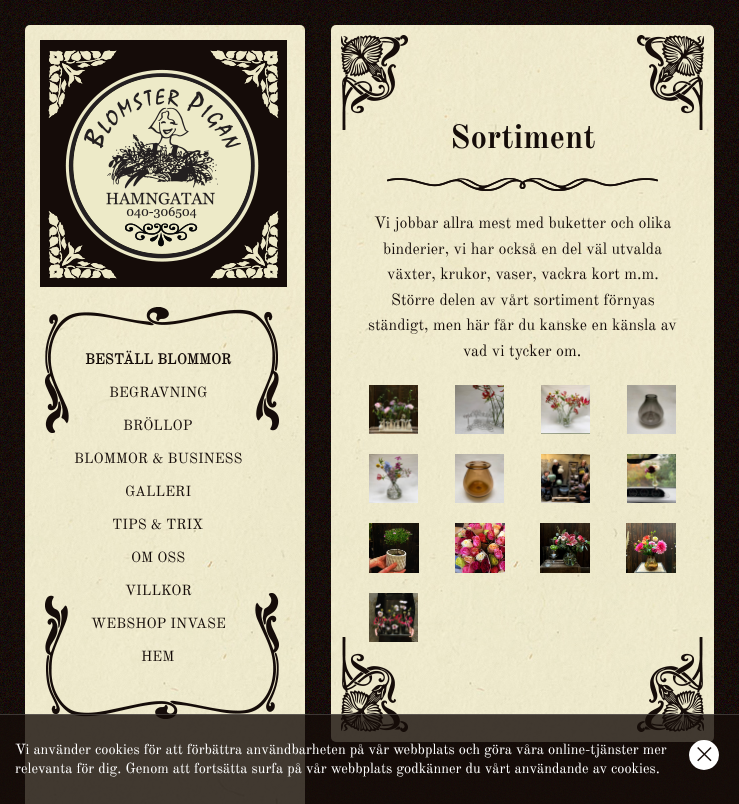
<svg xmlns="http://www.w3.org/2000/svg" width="739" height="804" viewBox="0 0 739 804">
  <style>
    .t1 { font: bold 33px 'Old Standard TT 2'; fill: #150c09; }
    .t2 { font: 16px Old Standard TT; fill: #150c09; }
    .t3 { font: bold 14.4px Old Standard TT; fill: #150c09; }
    .t4 { font: 14.4px Old Standard TT; fill: #150c09; }
    .t5 { font: 14.4px Old Standard TT; fill: #fff; }
    .t6 { font: bold 22px 'Old Standard TT 2'; fill: #150c09; }
  </style>
  <rect width="100%" height="100%" fill="#fff"/>
  <image x="0" y="0" width="739" height="804" href="images/1.png"/>
  <image x="331" y="25" width="383" height="717" href="images/2.png"/>
  <image x="341" y="35" width="67" height="95" href="images/3.png"/>
  <image x="637" y="35" width="67" height="95" href="images/4.png"/>
  <text x="450" y="148" class="t1">Sortiment</text>
  <image x="387" y="178" width="271" height="13" href="images/5.png"/>
  <text x="374" y="228" class="t2">Vi jobbar allra mest med buketter och olika</text>
  <text x="383" y="254" class="t2">binderier, vi har också en del väl utvalda</text>
  <text x="387" y="279" class="t2">växter, krukor, vaser, vackra kort m.m.</text>
  <text x="391" y="305" class="t2">Större delen av vårt sortiment förnyas</text>
  <text x="368" y="330" class="t2">ständigt, men här får du kanske en känsla av</text>
  <text x="463" y="356" class="t2">vad vi tycker om.</text>
  <image x="369" y="385" width="49" height="49" href="images/6.png"/>
  <image x="455" y="385" width="49" height="49" href="images/7.png"/>
  <image x="541" y="385" width="49" height="49" href="images/8.png"/>
  <image x="627" y="385" width="49" height="49" href="images/9.png"/>
  <image x="369" y="454" width="49" height="49" href="images/10.png"/>
  <image x="455" y="454" width="49" height="49" href="images/11.png"/>
  <image x="541" y="454" width="49" height="49" href="images/12.png"/>
  <image x="627" y="454" width="49" height="49" href="images/13.png"/>
  <image x="369" y="523" width="50" height="50" href="images/14.png"/>
  <image x="455" y="523" width="50" height="50" href="images/15.png"/>
  <image x="540" y="523" width="50" height="50" href="images/16.png"/>
  <image x="626" y="523" width="50" height="50" href="images/17.png"/>
  <image x="369" y="593" width="49" height="49" href="images/18.png"/>
  <image x="341" y="637" width="67" height="95" href="images/19.png"/>
  <image x="637" y="637" width="67" height="95" href="images/20.png"/>
  <image x="25" y="25" width="280" height="779" href="images/21.png"/>
  <image x="40" y="40" width="247" height="247" href="images/22.png"/>
  <image x="45" y="307" width="234" height="126" href="images/23.png"/>
  <text x="85" y="364" class="t3">BESTÄLL BLOMMOR</text>
  <text x="109" y="397" class="t4">BEGRAVNING</text>
  <text x="123" y="430" class="t4">BRÖLLOP</text>
  <text x="74" y="463" class="t4">BLOMMOR &amp; BUSINESS</text>
  <text x="125" y="496" class="t4">GALLERI</text>
  <text x="112" y="529" class="t4">TIPS &amp; TRIX</text>
  <text x="131" y="562" class="t4">OM OSS</text>
  <image x="45" y="593" width="234" height="126" href="images/24.png"/>
  <text x="125" y="595" class="t4">VILLKOR</text>
  <text x="91" y="628" class="t4">WEBSHOP INVASE</text>
  <text x="141" y="661" class="t4">HEM</text>
  <rect x="163" y="771" width="4" height="1" fill="#150c09"/>
  <rect x="0" y="714" width="739" height="90" fill="#150c09cc"/>
  <rect x="0" y="714" width="739" height="1" fill="#9b9b9b4d"/>
  <text x="15" y="754" class="t5">Vi använder cookies för att förbättra användbarheten på vår webbplats och göra våra online-tjänster mer</text>
  <circle cx="704" cy="755" r="14" fill="#fff" stroke="#fff" stroke-width="2"/>
  <text x="694" y="760" class="t6">×</text>
  <text x="15" y="773" class="t5">relevanta för dig. Genom att fortsätta surfa på vår webbplats godkänner du vårt användande av cookies.</text>
</svg>
